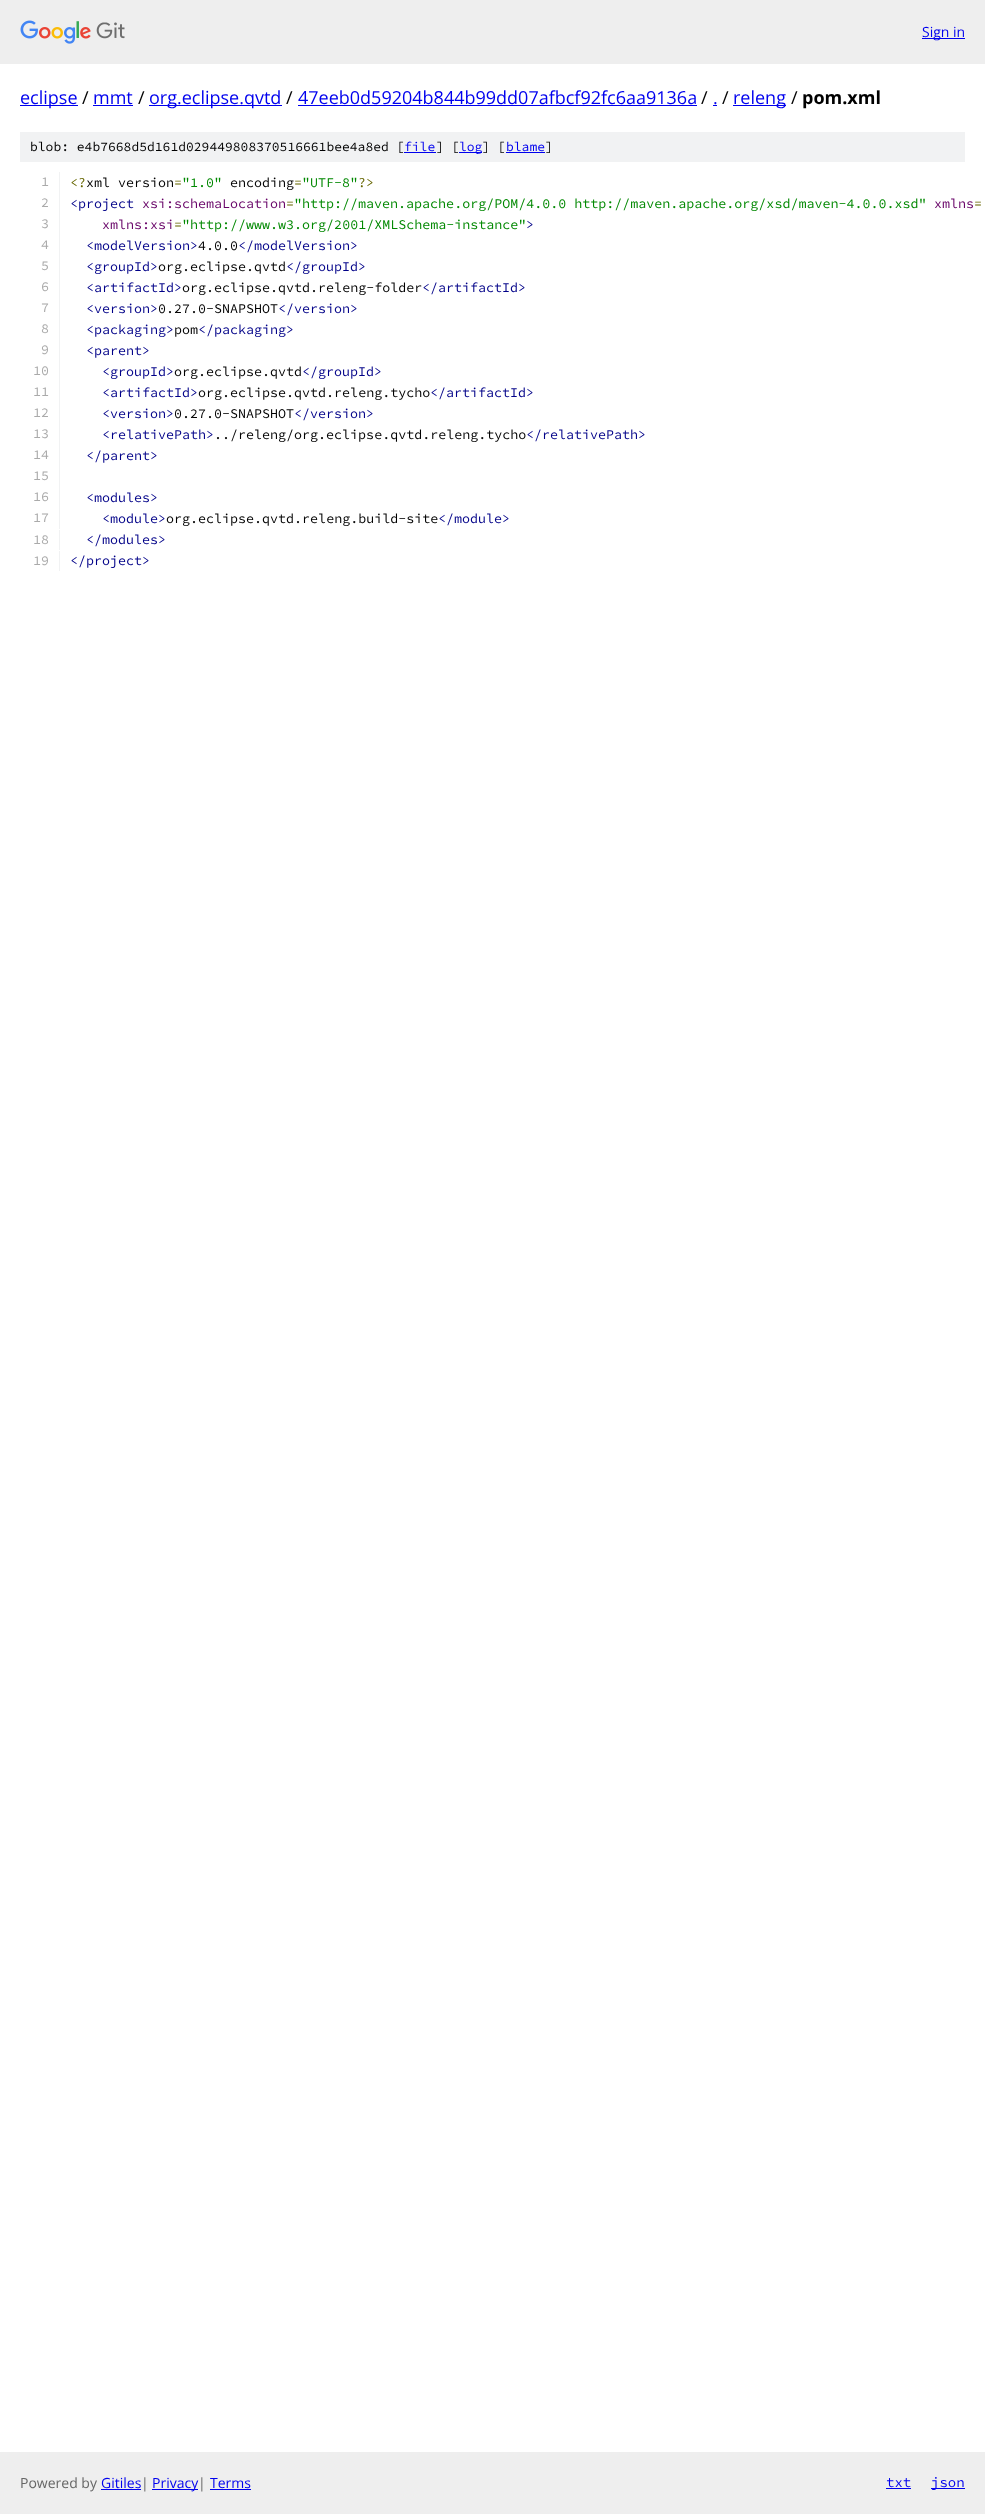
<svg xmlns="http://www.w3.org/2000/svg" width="985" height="2514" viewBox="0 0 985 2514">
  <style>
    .t1 { font: 14px Open Sans; fill: #00e; }
    .t2 { font: 18px Open Sans; fill: #00e; }
    .t3 { font: 18px Open Sans; fill: #000; }
    .t4 { font: bold 18px Open Sans; fill: #000; }
    .t5 { font: 200 13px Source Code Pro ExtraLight; fill: #000; }
    .t6 { font: 200 13px Source Code Pro ExtraLight; fill: #00e; }
    .t7 { font: 200 13.35px Source Code Pro ExtraLight; fill: #aaa; }
    .t8 { font: 200 13.35px Source Code Pro ExtraLight; fill: #660; }
    .t9 { font: 200 13.35px Source Code Pro ExtraLight; fill: #000; }
    .t10 { font: 200 13.35px Source Code Pro ExtraLight; fill: #080; }
    .t11 { font: 200 13.35px Source Code Pro ExtraLight; fill: #008; }
    .t12 { font: 200 13.35px Source Code Pro ExtraLight; fill: #606; }
    .t13 { font: 14px Open Sans; fill: #666; }
    .t14 { font: 200 14px Source Code Pro ExtraLight; fill: #00e; }
  </style>
  <rect width="100%" height="100%" fill="#fff"/>
  <rect x="0" y="0" width="985" height="64" fill="#eee"/>
  <image x="20" y="20" width="105" height="24" href="images/1.png"/>
  <rect x="922" y="38" width="43" height="1" fill="#00e"/>
  <text x="922" y="37" class="t1">Sign in</text>
  <rect x="20" y="105" width="58" height="1" fill="#00e"/>
  <text x="20" y="104" class="t2">eclipse</text>
  <text x="82" y="104" class="t3">/</text>
  <text x="93" y="104" class="t2">mmt</text>
  <rect x="93" y="105" width="40" height="1" fill="#00e"/>
  <text x="138" y="104" class="t3">/</text>
  <rect x="149" y="105" width="133" height="1" fill="#00e"/>
  <text x="149" y="104" class="t2">org.eclipse.qvtd</text>
  <text x="286" y="104" class="t3">/</text>
  <text x="298" y="104" class="t2">47eeb0d59204b844b99dd07afbcf92fc6aa9136a</text>
  <rect x="298" y="105" width="399" height="1" fill="#00e"/>
  <text x="701" y="104" class="t3">/</text>
  <text x="713" y="104" class="t2">.</text>
  <rect x="713" y="105" width="4" height="1" fill="#00e"/>
  <text x="722" y="104" class="t3">/</text>
  <rect x="733" y="105" width="53" height="1" fill="#00e"/>
  <text x="733" y="104" class="t2">releng</text>
  <text x="791" y="104" class="t3">/</text>
  <text x="802" y="104" class="t4">pom.xml</text>
  <rect x="20" y="132" width="945" height="30" fill="#f1f2f3"/>
  <text x="30" y="151" class="t5">blob: e4b7668d5d161d029449808370516661bee4a8ed [</text>
  <text x="404" y="151" class="t6">file</text>
  <rect x="404" y="152" width="32" height="1" fill="#00e"/>
  <text x="436" y="151" class="t5">] [</text>
  <rect x="459" y="152" width="23" height="1" fill="#00e"/>
  <text x="459" y="151" class="t6">log</text>
  <text x="482" y="151" class="t5">] [</text>
  <text x="506" y="151" class="t6">blame</text>
  <rect x="506" y="152" width="39" height="1" fill="#00e"/>
  <text x="545" y="151" class="t5">]</text>
  <rect x="59" y="172" width="1" height="357" fill="#f1f2f3"/>
  <text x="41" y="186" class="t7">1</text>
  <text x="70" y="187" class="t8">&lt;?</text>
  <text x="86" y="187" class="t9">xml version</text>
  <text x="174" y="187" class="t8">=</text>
  <text x="182" y="187" class="t10">"1.0"</text>
  <text x="230" y="187" class="t9">encoding</text>
  <text x="294" y="187" class="t8">=</text>
  <text x="302" y="187" class="t10">"UTF-8"</text>
  <text x="358" y="187" class="t8">?&gt;</text>
  <text x="41" y="207" class="t7">2</text>
  <text x="70" y="208" class="t11">&lt;project</text>
  <text x="142" y="208" class="t12">xsi:schemaLocation</text>
  <text x="286" y="208" class="t8">=</text>
  <text x="294" y="208" class="t10">"http://maven.apache.org/POM/4.0.0 http://maven.apache.org/xsd/maven-4.0.0.xsd"</text>
  <text x="934" y="208" class="t12">xmlns</text>
  <text x="974" y="208" class="t8">=</text>
  <text x="41" y="228" class="t7">3</text>
  <text x="102" y="229" class="t12">xmlns:xsi</text>
  <text x="174" y="229" class="t8">=</text>
  <text x="182" y="229" class="t10">"http://www.w3.org/2001/XMLSchema-instance"</text>
  <text x="526" y="229" class="t11">&gt;</text>
  <text x="41" y="249" class="t7">4</text>
  <text x="86" y="250" class="t11">&lt;modelVersion&gt;</text>
  <text x="198" y="250" class="t9">4.0.0</text>
  <text x="238" y="250" class="t11">&lt;/modelVersion&gt;</text>
  <text x="41" y="270" class="t7">5</text>
  <text x="86" y="271" class="t11">&lt;groupId&gt;</text>
  <text x="158" y="271" class="t9">org.eclipse.qvtd</text>
  <text x="286" y="271" class="t11">&lt;/groupId&gt;</text>
  <text x="41" y="291" class="t7">6</text>
  <text x="86" y="292" class="t11">&lt;artifactId&gt;</text>
  <text x="182" y="292" class="t9">org.eclipse.qvtd.releng-folder</text>
  <text x="422" y="292" class="t11">&lt;/artifactId&gt;</text>
  <text x="41" y="312" class="t7">7</text>
  <text x="86" y="313" class="t11">&lt;version&gt;</text>
  <text x="158" y="313" class="t9">0.27.0-SNAPSHOT</text>
  <text x="278" y="313" class="t11">&lt;/version&gt;</text>
  <text x="41" y="333" class="t7">8</text>
  <text x="86" y="334" class="t11">&lt;packaging&gt;</text>
  <text x="174" y="334" class="t9">pom</text>
  <text x="198" y="334" class="t11">&lt;/packaging&gt;</text>
  <text x="41" y="354" class="t7">9</text>
  <text x="86" y="355" class="t11">&lt;parent&gt;</text>
  <text x="33" y="375" class="t7">10</text>
  <text x="102" y="376" class="t11">&lt;groupId&gt;</text>
  <text x="174" y="376" class="t9">org.eclipse.qvtd</text>
  <text x="302" y="376" class="t11">&lt;/groupId&gt;</text>
  <text x="33" y="396" class="t7">11</text>
  <text x="102" y="397" class="t11">&lt;artifactId&gt;</text>
  <text x="198" y="397" class="t9">org.eclipse.qvtd.releng.tycho</text>
  <text x="430" y="397" class="t11">&lt;/artifactId&gt;</text>
  <text x="33" y="417" class="t7">12</text>
  <text x="102" y="418" class="t11">&lt;version&gt;</text>
  <text x="174" y="418" class="t9">0.27.0-SNAPSHOT</text>
  <text x="294" y="418" class="t11">&lt;/version&gt;</text>
  <text x="33" y="438" class="t7">13</text>
  <text x="102" y="439" class="t11">&lt;relativePath&gt;</text>
  <text x="214" y="439" class="t9">../releng/org.eclipse.qvtd.releng.tycho</text>
  <text x="526" y="439" class="t11">&lt;/relativePath&gt;</text>
  <text x="33" y="459" class="t7">14</text>
  <text x="86" y="460" class="t11">&lt;/parent&gt;</text>
  <text x="33" y="480" class="t7">15</text>
  <text x="33" y="501" class="t7">16</text>
  <text x="86" y="502" class="t11">&lt;modules&gt;</text>
  <text x="33" y="522" class="t7">17</text>
  <text x="102" y="523" class="t11">&lt;module&gt;</text>
  <text x="166" y="523" class="t9">org.eclipse.qvtd.releng.build-site</text>
  <text x="438" y="523" class="t11">&lt;/module&gt;</text>
  <rect x="59" y="530" width="1" height="20" fill="#f1f2f3"/>
  <text x="33" y="544" class="t7">18</text>
  <text x="86" y="544" class="t11">&lt;/modules&gt;</text>
  <rect x="59" y="551" width="1" height="20" fill="#f1f2f3"/>
  <text x="33" y="565" class="t7">19</text>
  <text x="70" y="565" class="t11">&lt;/project&gt;</text>
  <rect x="0" y="2452" width="985" height="62" fill="#eee"/>
  <text x="20" y="2488" class="t13">Powered by</text>
  <text x="101" y="2488" class="t1">Gitiles</text>
  <rect x="101" y="2489" width="40" height="1" fill="#00e"/>
  <text x="141" y="2488" class="t13">|</text>
  <rect x="152" y="2489" width="46" height="1" fill="#00e"/>
  <text x="152" y="2488" class="t1">Privacy</text>
  <text x="198" y="2488" class="t13">|</text>
  <text x="210" y="2488" class="t1">Terms</text>
  <rect x="210" y="2489" width="41" height="1" fill="#00e"/>
  <text x="886" y="2487" class="t14">txt</text>
  <rect x="886" y="2488" width="25" height="1" fill="#00e"/>
  <rect x="931" y="2488" width="34" height="1" fill="#00e"/>
  <text x="931" y="2487" class="t14">json</text>
</svg>
